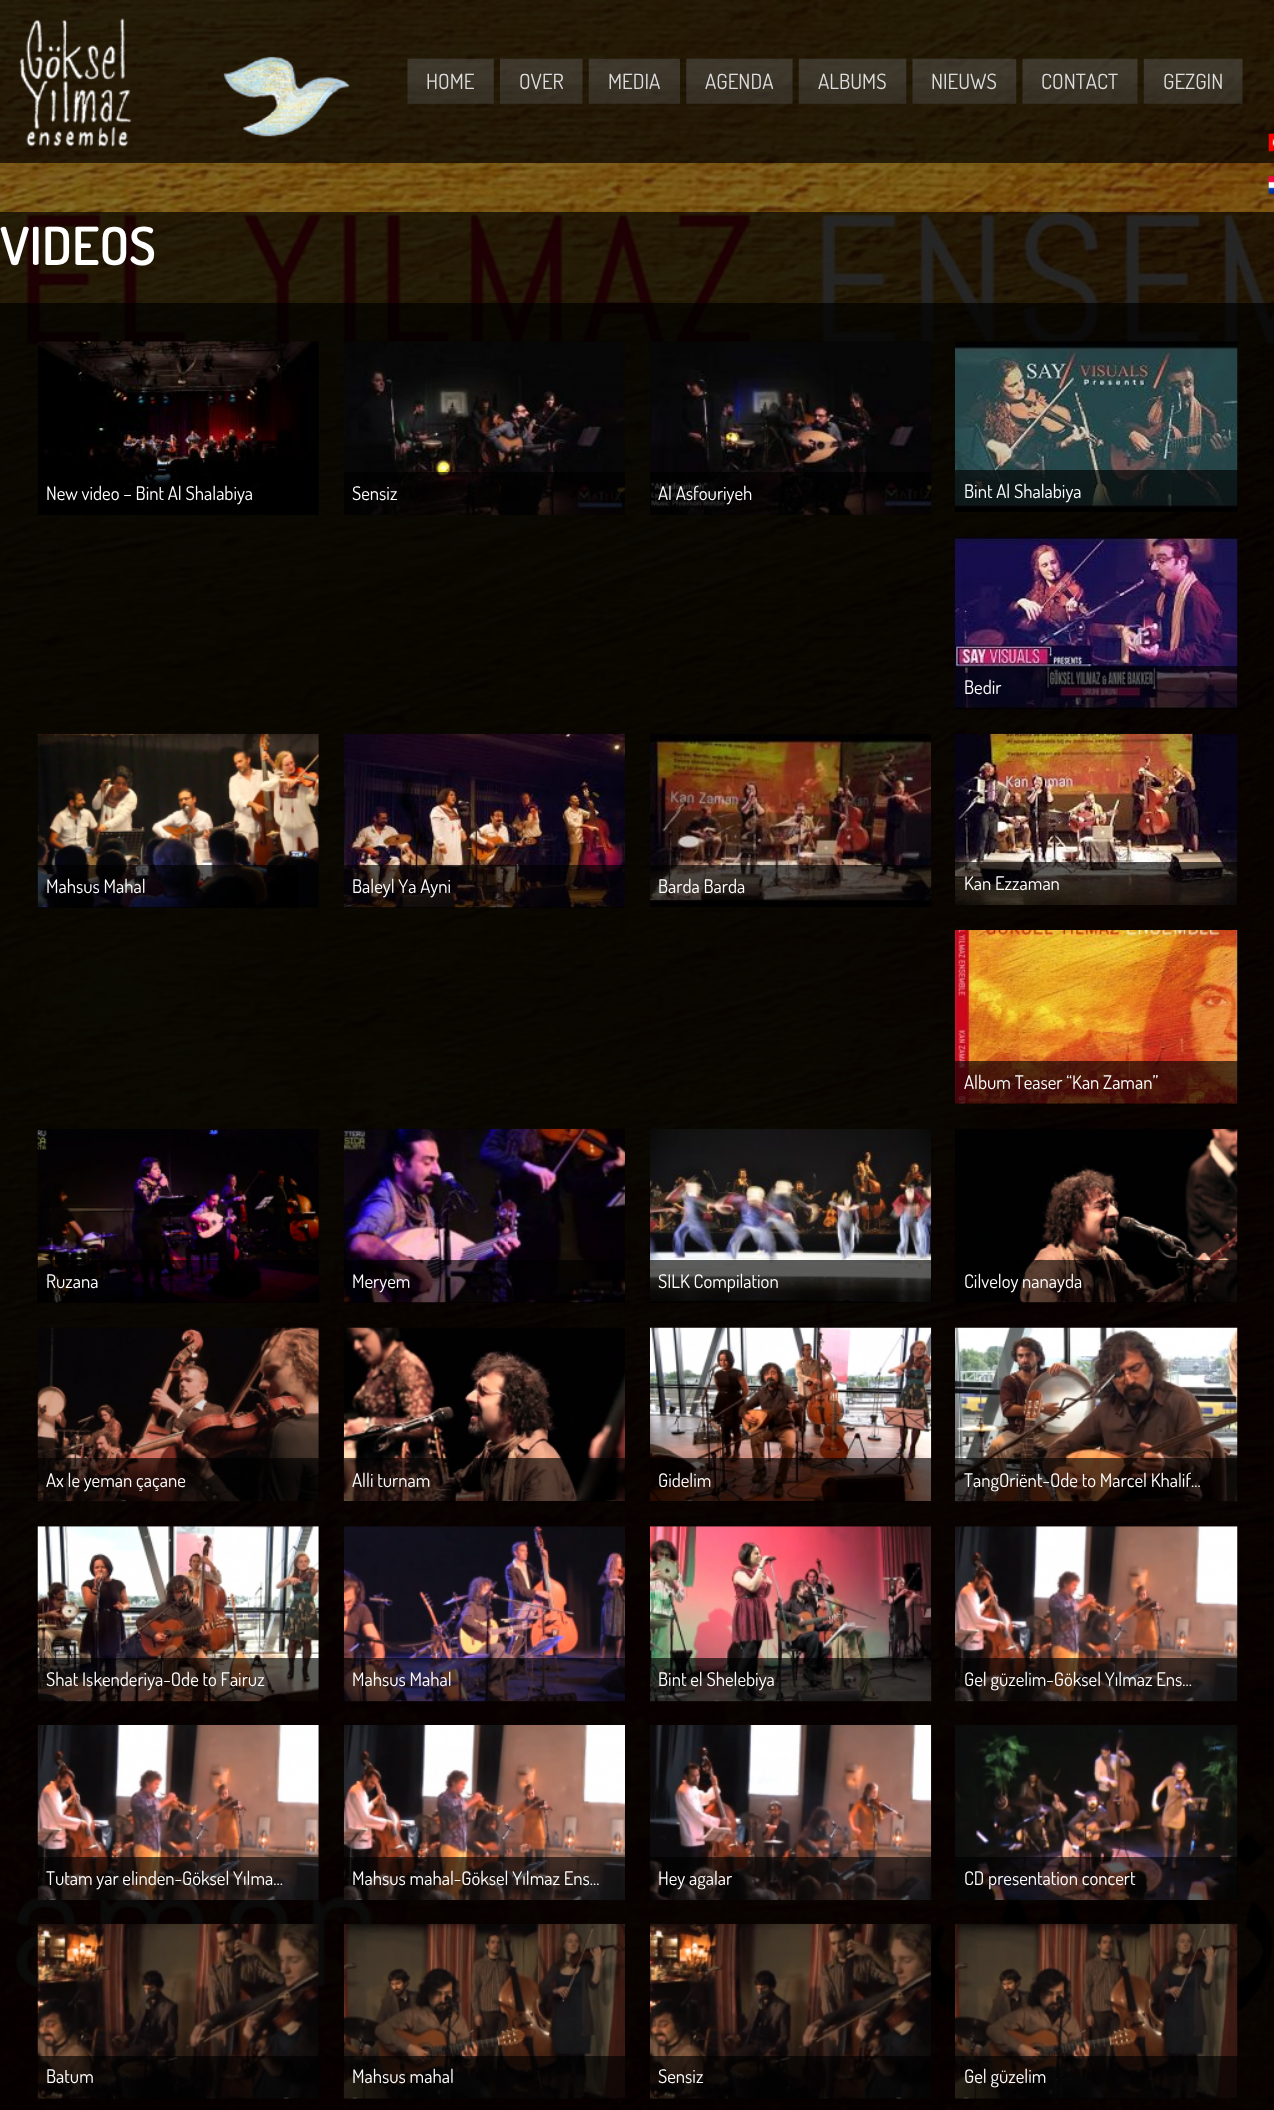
<svg xmlns="http://www.w3.org/2000/svg" width="1274" height="2110" viewBox="0 0 1274 2110">
  <style>*{font-kerning:none!important;font-variant-ligatures:none!important}</style>
  <style>
    .t1 { font: 21px Dosis; fill: #ddd; }
    .t2 { font: 600 52.5px Dosis; fill: #fff; }
    .t3 { font: 18.75px Dosis; fill: #fff; }
  </style>
  <rect width="100%" height="100%" fill="#fff"/>
  <image x="0" y="0" width="1274" height="2110" href="images/1.png"/>
  <rect x="0" y="0" width="1274" height="163" fill="#000000b3"/>
  <image x="19" y="18" width="331" height="129" href="images/2.png"/>
  <image x="407" y="58" width="87" height="46" href="images/3.png"/>
  <text x="426" y="89" class="t1">HOME</text>
  <image x="500" y="58" width="83" height="46" href="images/4.png"/>
  <text x="519" y="89" class="t1">OVER</text>
  <image x="588" y="58" width="92" height="46" href="images/5.png"/>
  <text x="608" y="89" class="t1">MEDIA</text>
  <image x="686" y="58" width="107" height="46" href="images/6.png"/>
  <text x="705" y="89" class="t1">AGENDA</text>
  <image x="798" y="58" width="109" height="46" href="images/7.png"/>
  <text x="818" y="89" class="t1">ALBUMS</text>
  <image x="912" y="58" width="105" height="46" href="images/8.png"/>
  <text x="931" y="89" class="t1">NIEUWS</text>
  <image x="1022" y="58" width="116" height="46" href="images/9.png"/>
  <text x="1041" y="89" class="t1">CONTACT</text>
  <image x="1143" y="58" width="100" height="46" href="images/10.png"/>
  <text x="1163" y="89" class="t1">GEZGIN</text>
  <image x="1268" y="133" width="6" height="19" href="images/11.png"/>
  <image x="1268" y="176" width="6" height="18" href="images/12.png"/>
  <rect x="0" y="212" width="1274" height="1898" fill="#000000b3"/>
  <text x="0" y="265" class="t2">VIDEOS</text>
  <rect x="0" y="303" width="1274" height="1807" fill="#000000b3"/>
  <image x="38" y="341" width="281" height="174" href="images/13.png"/>
  <rect x="139" y="472" width="37" height="21" fill="#000000a3"/>
  <text x="46" y="500" class="t3">New video – Bint Al Shalabiya</text>
  <image x="344" y="341" width="281" height="174" href="images/14.png"/>
  <rect x="344" y="472" width="281" height="43" fill="#000000a3"/>
  <text x="352" y="500" class="t3">Sensiz</text>
  <image x="650" y="341" width="282" height="174" href="images/15.png"/>
  <rect x="650" y="472" width="281" height="43" fill="#000000a3"/>
  <text x="658" y="500" class="t3">Al Asfouriyeh</text>
  <image x="955" y="341" width="283" height="171" href="images/16.png"/>
  <rect x="955" y="470" width="283" height="40" fill="#000000a3"/>
  <text x="964" y="498" class="t3">Bint Al Shalabiya</text>
  <image x="955" y="537" width="283" height="172" href="images/17.png"/>
  <rect x="955" y="666" width="283" height="43" fill="#000000a3"/>
  <text x="964" y="694" class="t3">Bedir</text>
  <image x="37" y="733" width="282" height="175" href="images/18.png"/>
  <rect x="37" y="865" width="261" height="43" fill="#000000a3"/>
  <text x="46" y="893" class="t3">Mahsus Mahal</text>
  <image x="343" y="733" width="282" height="175" href="images/19.png"/>
  <rect x="344" y="865" width="281" height="43" fill="#000000a3"/>
  <text x="352" y="893" class="t3">Baleyl Ya Ayni</text>
  <image x="650" y="734" width="282" height="173" href="images/20.png"/>
  <rect x="650" y="865" width="281" height="38" fill="#000000a3"/>
  <text x="658" y="893" class="t3">Barda Barda</text>
  <image x="955" y="733" width="283" height="172" href="images/21.png"/>
  <rect x="955" y="862" width="283" height="43" fill="#000000a3"/>
  <text x="964" y="890" class="t3">Kan Ezzaman</text>
  <image x="955" y="930" width="283" height="174" href="images/22.png"/>
  <rect x="955" y="1061" width="283" height="43" fill="#000000a3"/>
  <text x="964" y="1089" class="t3">Album Teaser “Kan Zaman”</text>
  <image x="37" y="1129" width="282" height="174" href="images/23.png"/>
  <rect x="37" y="1260" width="282" height="43" fill="#000000a3"/>
  <text x="46" y="1288" class="t3">Ruzana</text>
  <image x="343" y="1128" width="282" height="175" href="images/24.png"/>
  <rect x="344" y="1260" width="281" height="43" fill="#000000a3"/>
  <text x="352" y="1288" class="t3">Meryem</text>
  <image x="650" y="1129" width="282" height="174" href="images/25.png"/>
  <rect x="650" y="1260" width="282" height="43" fill="#000000a3"/>
  <text x="658" y="1288" class="t3">SILK Compilation</text>
  <image x="955" y="1128" width="283" height="175" href="images/26.png"/>
  <rect x="1019" y="1260" width="219" height="43" fill="#000000a3"/>
  <text x="964" y="1288" class="t3">Cilveloy nanayda</text>
  <image x="37" y="1327" width="282" height="175" href="images/27.png"/>
  <rect x="37" y="1458" width="282" height="43" fill="#000000a3"/>
  <text x="46" y="1487" class="t3">Ax le yeman çaçane</text>
  <image x="343" y="1327" width="282" height="175" href="images/28.png"/>
  <rect x="344" y="1458" width="281" height="44" fill="#000000a3"/>
  <text x="352" y="1487" class="t3">Alli turnam</text>
  <image x="650" y="1327" width="282" height="175" href="images/29.png"/>
  <rect x="650" y="1458" width="282" height="44" fill="#000000a3"/>
  <text x="658" y="1487" class="t3">Gidelim</text>
  <image x="955" y="1327" width="283" height="175" href="images/30.png"/>
  <rect x="955" y="1458" width="283" height="43" fill="#000000a3"/>
  <text x="964" y="1487" class="t3">TangOriënt-Ode to Marcel Khalif...</text>
  <image x="37" y="1526" width="282" height="176" href="images/31.png"/>
  <rect x="37" y="1658" width="282" height="43" fill="#000000a3"/>
  <text x="46" y="1686" class="t3">Shat Iskenderiya-Ode to Fairuz</text>
  <image x="343" y="1526" width="282" height="176" href="images/32.png"/>
  <rect x="344" y="1658" width="281" height="43" fill="#000000a3"/>
  <text x="352" y="1686" class="t3">Mahsus Mahal</text>
  <image x="650" y="1526" width="282" height="176" href="images/33.png"/>
  <rect x="650" y="1658" width="281" height="43" fill="#000000a3"/>
  <text x="658" y="1686" class="t3">Bint el Shelebiya</text>
  <image x="955" y="1526" width="283" height="176" href="images/34.png"/>
  <rect x="955" y="1658" width="283" height="43" fill="#000000a3"/>
  <text x="964" y="1686" class="t3">Gel güzelim-Göksel Yılmaz Ens...</text>
  <image x="37" y="1725" width="282" height="175" href="images/35.png"/>
  <rect x="37" y="1857" width="282" height="43" fill="#000000a3"/>
  <text x="46" y="1885" class="t3">Tutam yar elinden-Göksel Yılma...</text>
  <image x="343" y="1725" width="282" height="175" href="images/36.png"/>
  <rect x="344" y="1857" width="281" height="43" fill="#000000a3"/>
  <text x="352" y="1885" class="t3">Mahsus mahal-Göksel Yılmaz Ens...</text>
  <image x="650" y="1725" width="282" height="175" href="images/37.png"/>
  <rect x="650" y="1857" width="281" height="43" fill="#000000a3"/>
  <text x="658" y="1885" class="t3">Hey agalar</text>
  <image x="955" y="1725" width="283" height="175" href="images/38.png"/>
  <rect x="955" y="1857" width="283" height="43" fill="#000000a3"/>
  <text x="964" y="1885" class="t3">CD presentation concert</text>
  <image x="37" y="1923" width="282" height="176" href="images/39.png"/>
  <rect x="37" y="2056" width="282" height="43" fill="#000000a3"/>
  <text x="46" y="2083" class="t3">Batum</text>
  <image x="343" y="1923" width="282" height="176" href="images/40.png"/>
  <rect x="344" y="2056" width="281" height="43" fill="#000000a3"/>
  <text x="352" y="2083" class="t3">Mahsus mahal</text>
  <image x="650" y="1923" width="282" height="176" href="images/41.png"/>
  <rect x="650" y="2056" width="281" height="43" fill="#000000a3"/>
  <text x="658" y="2083" class="t3">Sensiz</text>
  <image x="955" y="1923" width="283" height="176" href="images/42.png"/>
  <rect x="955" y="2056" width="283" height="43" fill="#000000a3"/>
  <text x="964" y="2083" class="t3">Gel güzelim</text>
</svg>
